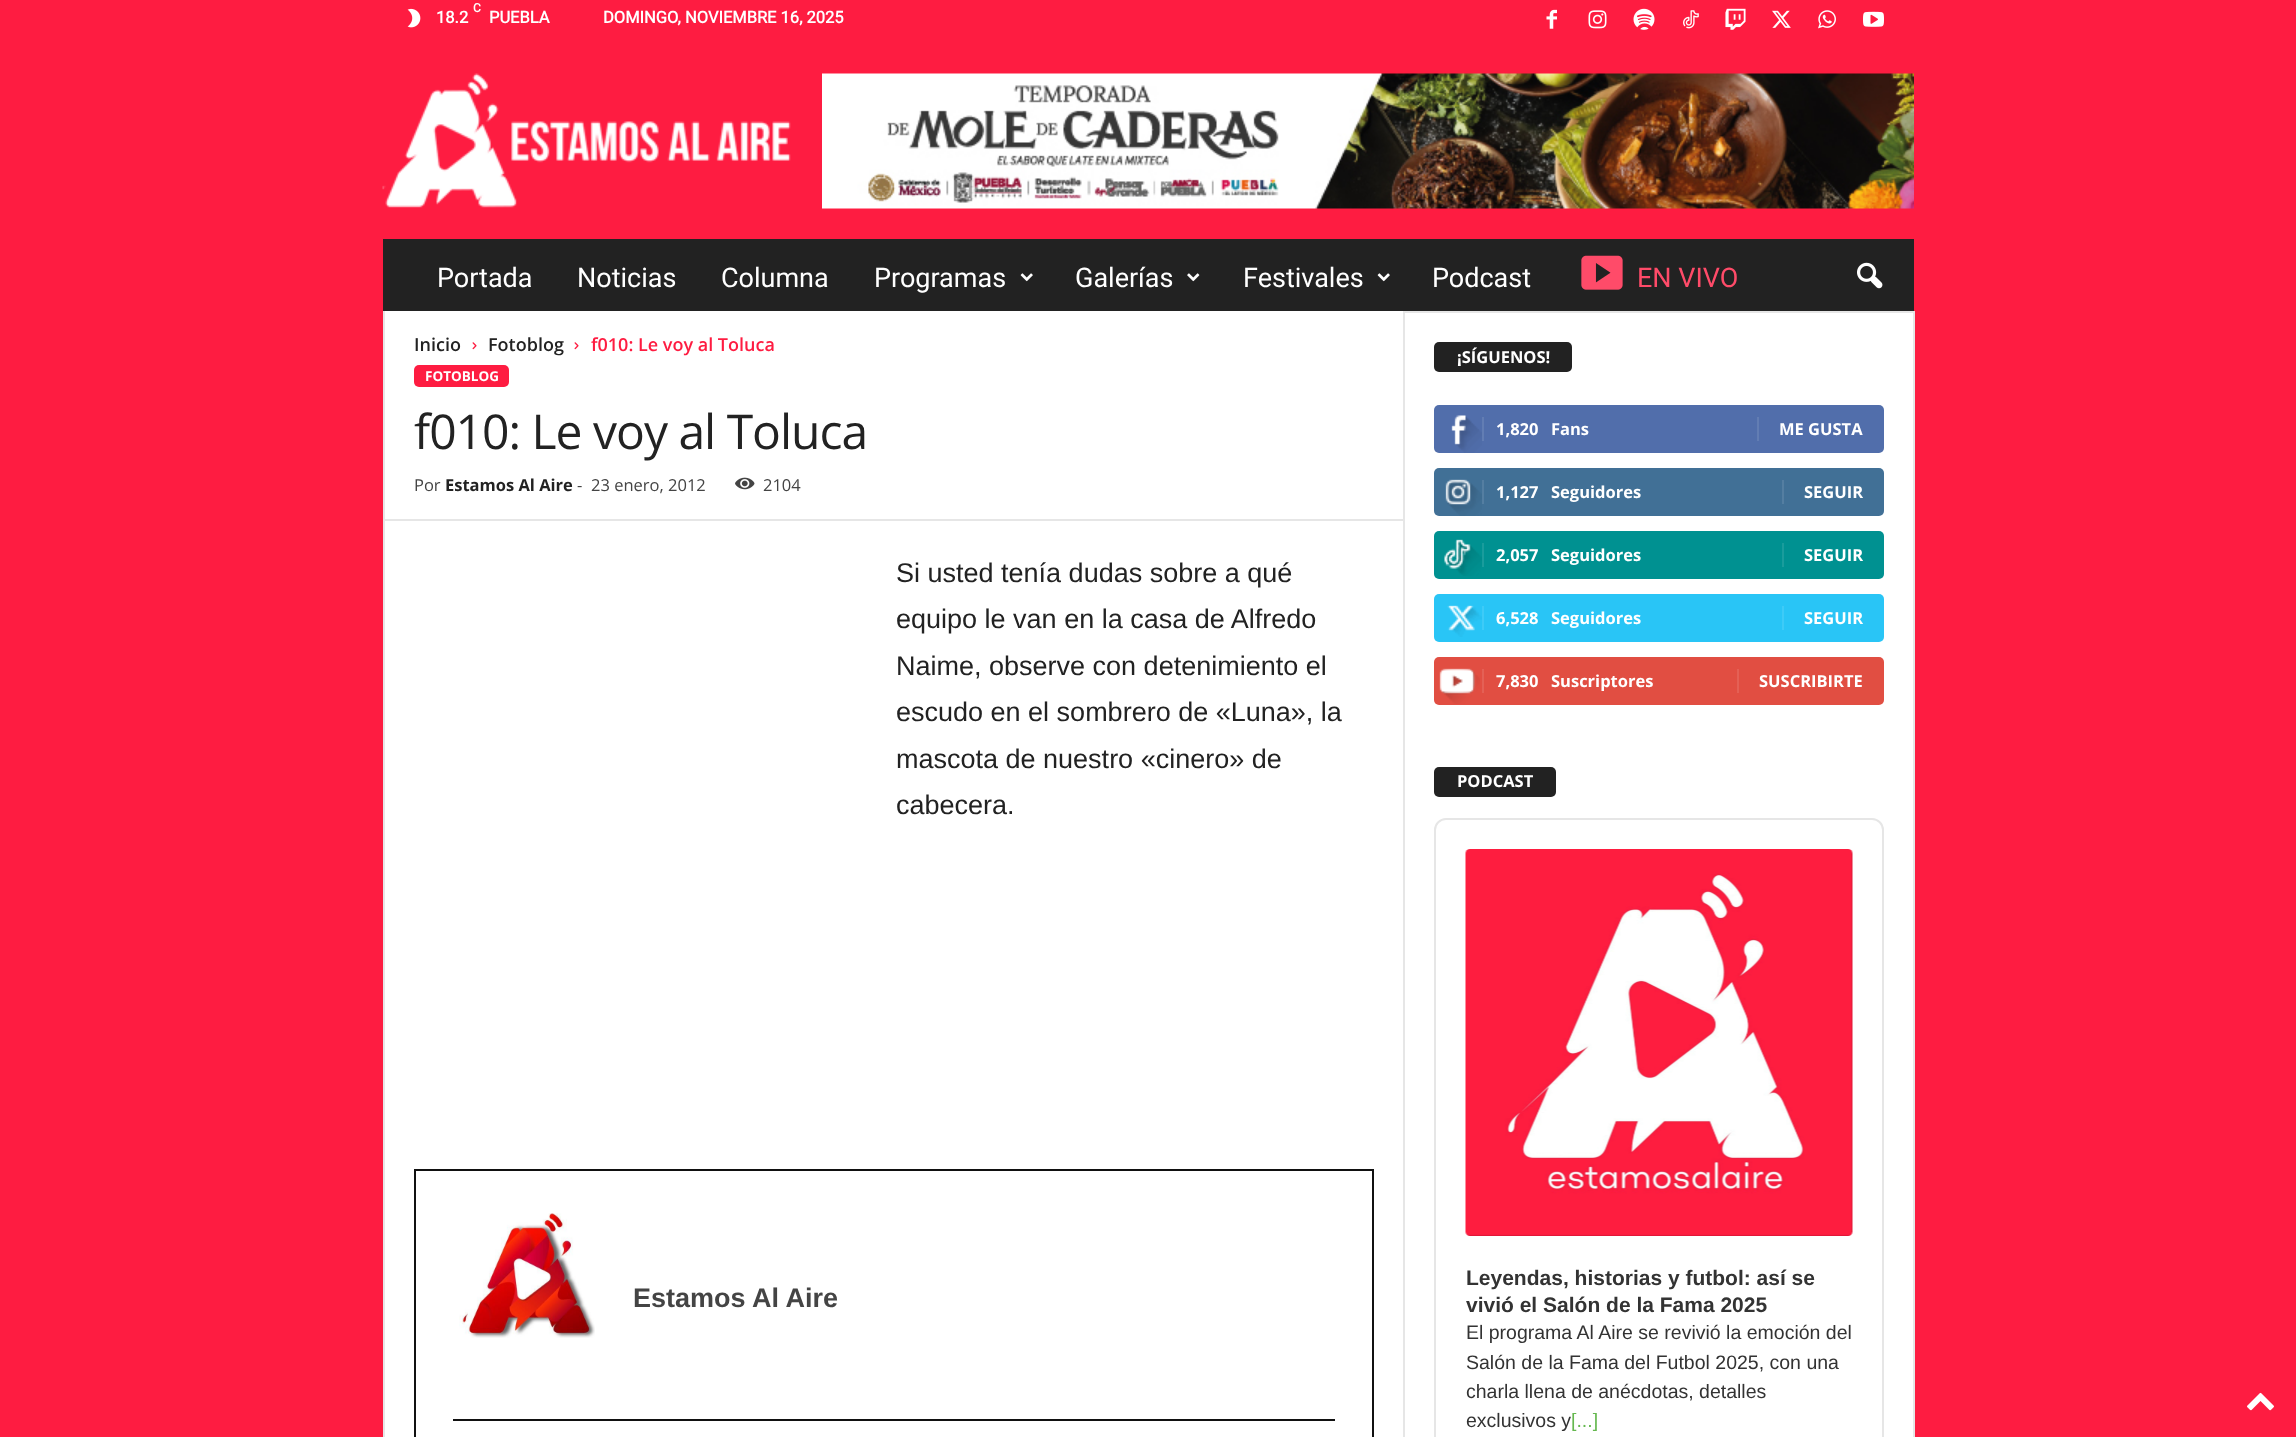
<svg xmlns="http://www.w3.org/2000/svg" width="2296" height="1437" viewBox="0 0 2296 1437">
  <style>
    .t1 { font: bold 12px Roboto; fill: #fff; }
    .t2 { font: bold 16.5px Roboto; fill: #fff; }
    .t3 { font: 27px Roboto; fill: #fff; }
    .t4 { font: 27px Roboto; fill: #ff4b69; }
    .t5 { font: 600 18px Open Sans; fill: #222; }
    .t6 { font: 600 18px Open Sans; fill: #fe1c41; }
    .t7 { font: bold 13.5px Open Sans; fill: #fff; }
    .t8 { font: 48px Open Sans; letter-spacing: -1px; fill: #222; }
    .t9 { font: 16.5px Open Sans; fill: #444; }
    .t10 { font: bold 16.5px Open Sans; fill: #222; }
    .t11 { font: 27px Liberation Sans; fill: #222; }
    .t12 { font: bold 27px Liberation Sans; fill: #444; }
    .t13 { font: bold 16.5px Open Sans; fill: #fff; }
    .t14 { font: bold 21px Liberation Sans; fill: #333; }
    .t15 { font: 19.5px Liberation Sans; fill: #333; }
    .t16 { font: 19.5px Liberation Sans; fill: #65b84f; }
  </style>
  <rect width="100%" height="100%" fill="#fe1c41"/>
  <image x="407" y="8" width="14" height="20" href="images/1.png"/>
  <text x="473" y="12" class="t1">C</text>
  <text x="436" y="23" class="t2">18.2</text>
  <text x="489" y="23" class="t2">PUEBLA</text>
  <text x="603" y="23" class="t2">DOMINGO, NOVIEMBRE 16, 2025</text>
  <image x="1546" y="9" width="11" height="20" href="images/2.png"/>
  <image x="1588" y="10" width="19" height="19" href="images/3.png"/>
  <image x="1633" y="8" width="22" height="22" href="images/4.png"/>
  <image x="1683" y="10" width="16" height="19" href="images/5.png"/>
  <image x="1725" y="8" width="21" height="22" href="images/6.png"/>
  <image x="1772" y="10" width="19" height="18" href="images/7.png"/>
  <image x="1818" y="10" width="18" height="19" href="images/8.png"/>
  <image x="1863" y="11" width="21" height="16" href="images/9.png"/>
  <image x="382" y="73" width="409" height="135" href="images/10.png"/>
  <image x="822" y="73" width="1092" height="136" href="images/11.png"/>
  <rect x="383" y="239" width="1531" height="72" fill="#222"/>
  <text x="437" y="287" class="t3">Portada</text>
  <text x="577" y="287" class="t3">Noticias</text>
  <text x="721" y="287" class="t3">Columna</text>
  <text x="874" y="287" class="t3">Programas</text>
  <image x="1020" y="273" width="13" height="9" href="images/12.png"/>
  <text x="1075" y="287" class="t3">Galerías</text>
  <image x="1187" y="273" width="13" height="9" href="images/13.png"/>
  <text x="1243" y="287" class="t3">Festivales</text>
  <image x="1377" y="273" width="13" height="9" href="images/12.png"/>
  <text x="1432" y="287" class="t3">Podcast</text>
  <image x="1581" y="255" width="42" height="35" href="images/14.png"/>
  <text x="1637" y="287" class="t4">EN VIVO</text>
  <image x="1857" y="262" width="26" height="27" href="images/15.png"/>
  <rect x="385" y="311" width="1528" height="1126" fill="#fff"/>
  <rect x="383" y="311" width="2" height="1126" fill="#e6e6e6"/>
  <text x="414" y="351" class="t5">Inicio</text>
  <image x="472" y="342" width="5" height="8" href="images/16.png"/>
  <text x="488" y="351" class="t5">Fotoblog</text>
  <image x="574" y="342" width="5" height="8" href="images/16.png"/>
  <text x="591" y="351" class="t6">f010: Le voy al Toluca</text>
  <rect x="414" y="365" width="95" height="22" rx="5" fill="#fe1c41"/>
  <text x="425" y="381" class="t7">FOTOBLOG</text>
  <text x="414" y="449" class="t8">f010: Le voy al Toluca</text>
  <text x="414" y="491" class="t9">Por</text>
  <text x="445" y="491" class="t10">Estamos Al Aire</text>
  <text x="577" y="491" class="t9">-</text>
  <text x="591" y="491" class="t9">23 enero, 2012</text>
  <image x="735" y="477" width="20" height="13" href="images/17.png"/>
  <text x="763" y="491" class="t9">2104</text>
  <rect x="384" y="519" width="1019" height="2" fill="#e6e6e6"/>
  <text x="896" y="582" class="t11">Si usted tenía dudas sobre a qué</text>
  <text x="896" y="628" class="t11">equipo le van en la casa de Alfredo</text>
  <text x="896" y="675" class="t11">Naime, observe con detenimiento el</text>
  <text x="896" y="721" class="t11">escudo en el sombrero de «Luna», la</text>
  <text x="896" y="768" class="t11">mascota de nuestro «cinero» de</text>
  <text x="896" y="814" class="t11">cabecera.</text>
  <rect x="415" y="1170" width="958" height="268" fill="none" stroke="#111" stroke-width="2"/>
  <image x="459" y="1213" width="136" height="125" href="images/18.png"/>
  <text x="633" y="1307" class="t12">Estamos Al Aire</text>
  <rect x="453" y="1419" width="882" height="2" fill="#111"/>
  <rect x="1403" y="311" width="2" height="1126" fill="#e6e6e6"/>
  <rect x="1404" y="311" width="509" height="2" fill="#e6e6e6"/>
  <rect x="1434" y="342" width="138" height="30" rx="5" fill="#222"/>
  <text x="1457" y="363" class="t13">¡SÍGUENOS!</text>
  <rect x="1434" y="405" width="450" height="48" rx="5" fill="#516eab"/>
  <image x="1451" y="415" width="31" height="38" href="images/19.png"/>
  <rect x="1482" y="417" width="2" height="24" fill="#627db3"/>
  <text x="1496" y="435" class="t13">1,820</text>
  <text x="1551" y="435" class="t13">Fans</text>
  <rect x="1757" y="417" width="2" height="24" fill="#627db3"/>
  <text x="1779" y="435" class="t13">ME GUSTA</text>
  <rect x="1434" y="468" width="450" height="48" rx="5" fill="#417096"/>
  <image x="1445" y="479" width="37" height="37" href="images/20.png"/>
  <rect x="1482" y="480" width="2" height="24" fill="#547ea1"/>
  <text x="1496" y="498" class="t13">1,127</text>
  <text x="1551" y="498" class="t13">Seguidores</text>
  <rect x="1782" y="480" width="2" height="24" fill="#547ea1"/>
  <text x="1804" y="498" class="t13">SEGUIR</text>
  <rect x="1434" y="531" width="450" height="48" rx="5" fill="#009191"/>
  <image x="1444" y="539" width="38" height="37" href="images/21.png"/>
  <rect x="1482" y="543" width="2" height="24" fill="#1a9c9c"/>
  <text x="1496" y="561" class="t13">2,057</text>
  <text x="1551" y="561" class="t13">Seguidores</text>
  <rect x="1782" y="543" width="2" height="24" fill="#1a9c9c"/>
  <text x="1804" y="561" class="t13">SEGUIR</text>
  <rect x="1434" y="594" width="450" height="48" rx="5" fill="#29c5f6"/>
  <image x="1447" y="605" width="35" height="32" href="images/22.png"/>
  <rect x="1482" y="606" width="2" height="24" fill="#3ecbf7"/>
  <text x="1496" y="624" class="t13">6,528</text>
  <text x="1551" y="624" class="t13">Seguidores</text>
  <rect x="1782" y="606" width="2" height="24" fill="#3ecbf7"/>
  <text x="1804" y="624" class="t13">SEGUIR</text>
  <rect x="1434" y="657" width="450" height="48" rx="5" fill="#e14e42"/>
  <image x="1439" y="668" width="41" height="36" href="images/23.png"/>
  <rect x="1482" y="669" width="2" height="24" fill="#e46055"/>
  <text x="1496" y="687" class="t13">7,830</text>
  <text x="1551" y="687" class="t13">Suscriptores</text>
  <rect x="1737" y="669" width="2" height="24" fill="#e46055"/>
  <text x="1759" y="687" class="t13">SUSCRIBIRTE</text>
  <rect x="1434" y="767" width="122" height="30" rx="5" fill="#222"/>
  <text x="1457" y="787" class="t13">PODCAST</text>
  <rect x="1435" y="819" width="448" height="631" rx="11" fill="none" stroke="#e6e6e6" stroke-width="2"/>
  <image x="1465" y="849" width="388" height="387" href="images/24.png"/>
  <text x="1466" y="1285" class="t14">Leyendas, historias y futbol: así se</text>
  <text x="1466" y="1312" class="t14">vivió el Salón de la Fama 2025</text>
  <text x="1466" y="1339" class="t15">El programa Al Aire se revivió la emoción del</text>
  <text x="1466" y="1369" class="t15">Salón de la Fama del Futbol 2025, con una</text>
  <text x="1466" y="1398" class="t15">charla llena de anécdotas, detalles</text>
  <text x="1466" y="1427" class="t15">exclusivos y</text>
  <text x="1571" y="1427" class="t16">[...]</text>
  <rect x="1913" y="311" width="2" height="1126" fill="#e6e6e6"/>
  <image x="2247" y="1392" width="27" height="19" href="images/25.png"/>
</svg>
